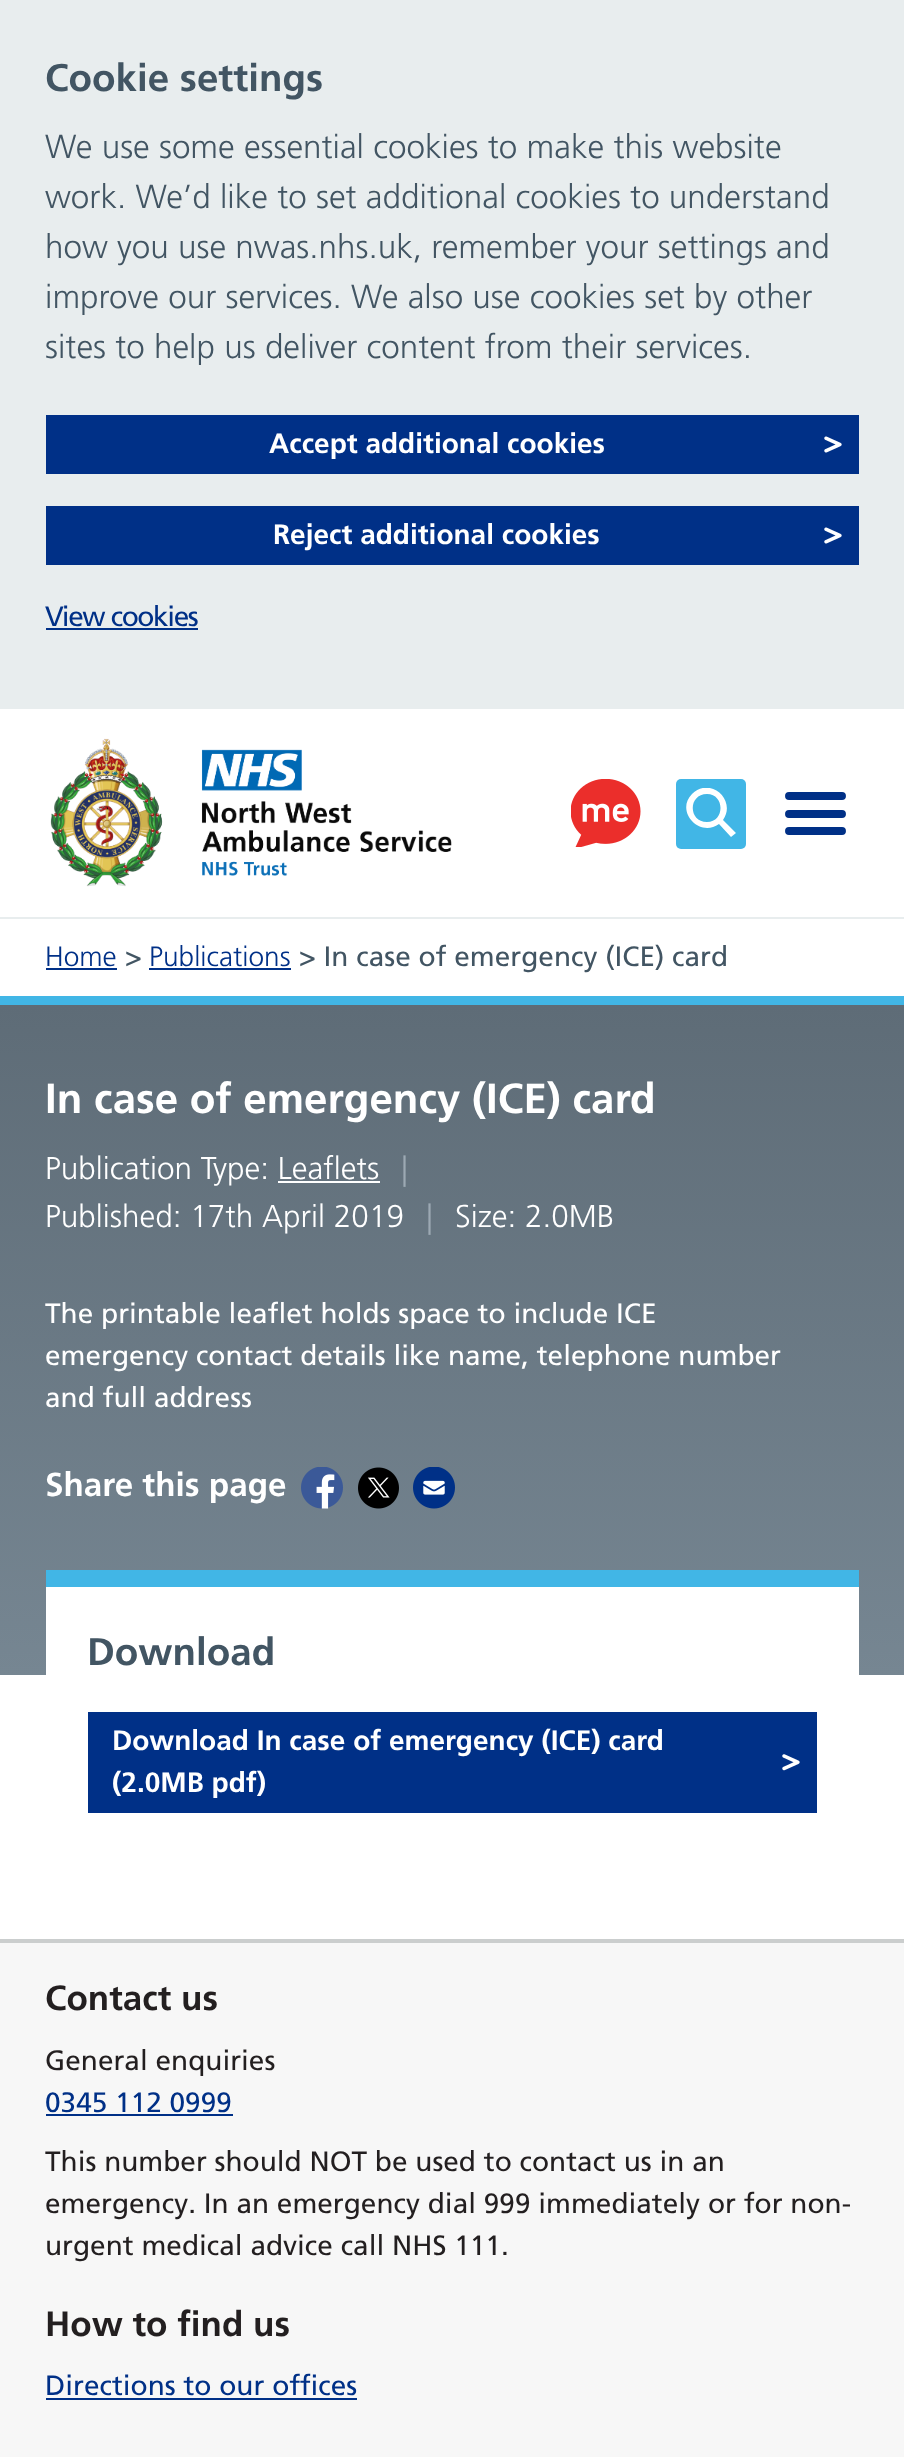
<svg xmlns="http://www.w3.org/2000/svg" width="904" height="2457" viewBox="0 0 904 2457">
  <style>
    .t1 { font: bold 38.5px Frutiger; fill: #425563; }
    .t2 { font: 300 33.25px Frutiger; fill: #425563; }
    .t3 { font: bold 28px Frutiger; fill: #fff; }
    .t4 { font: 28px Frutiger; letter-spacing: -1.4px; fill: #003087; }
    .t5 { font: 300 28px Frutiger; fill: #003087; }
    .t6 { font: 28px Frutiger; fill: #425563; }
    .t7 { font: bold 42px Frutiger; fill: #fff; }
    .t8 { font: 300 31.5px Frutiger; fill: #fff; }
    .t9 { font: 300 31.5px Frutiger; fill: #9ca9b3; }
    .t10 { font: 28px Frutiger; fill: #fff; }
    .t11 { font: bold 33.25px Frutiger; fill: #fff; }
    .t12 { font: bold 35px Frutiger; fill: #231f20; }
    .t13 { font: 28px Frutiger; fill: #231f20; }
    .t14 { font: 28px Frutiger; fill: #003087; }
  </style>
  <defs>
    <clipPath id="clip1"><rect x="684" y="788" width="53" height="50"/></clipPath>
    <linearGradient id="g1" gradientUnits="userSpaceOnUse" x1="452" y1="1005" x2="452" y2="1675"><stop offset="0" stop-color="#5e6c77"/><stop offset="1" stop-color="#768692"/></linearGradient>
  </defs>
  <rect width="100%" height="100%" fill="#fff"/>
  <rect x="0" y="0" width="904" height="709" fill="#e8edee"/>
  <text x="45" y="91" class="t1">Cookie settings</text>
  <text x="45" y="158" class="t2">We use some essential cookies to make this website</text>
  <text x="45" y="208" class="t2">work. We’d like to set additional cookies to understand</text>
  <text x="45" y="258" class="t2">how you use nwas.nhs.uk, remember your settings and</text>
  <text x="45" y="308" class="t2">improve our services. We also use cookies set by other</text>
  <text x="45" y="358" class="t2">sites to help us deliver content from their services.</text>
  <rect x="46" y="415" width="813" height="59" fill="#003087"/>
  <image x="824" y="436" width="18" height="17" href="images/1.png"/>
  <text x="269" y="453" class="t3">Accept additional cookies</text>
  <rect x="46" y="506" width="813" height="59" fill="#003087"/>
  <image x="824" y="527" width="18" height="17" href="images/1.png"/>
  <text x="273" y="544" class="t3">Reject additional cookies</text>
  <text x="45" y="626" class="t4">View cookies</text>
  <rect x="46" y="628" width="152" height="2" fill="#003087"/>
  <image x="50" y="738" width="402" height="149" href="images/2.png"/>
  <image x="571" y="779" width="70" height="68" href="images/3.png"/>
  <rect x="676" y="779" width="70" height="70" rx="5" fill="#41b6e6"/>
  <g clip-path="url(#clip1)">
    <path d="M736 833L723 820C737 800 710 776 692 794C675 811 699 838 719 824L731 837ZM707 822C688 822 688 794 707 794C725 794 725 822 707 822Z" fill="#fff" fill-rule="evenodd"/>
  </g>
  <path d="M789 796H842M789 814H842M789 831H842" fill="none" stroke="#003087" stroke-width="7.9" stroke-linecap="round"/>
  <rect x="0" y="917" width="904" height="2" fill="#e8edee"/>
  <text x="45" y="966" class="t5">Home</text>
  <rect x="46" y="968" width="71" height="2" fill="#003087"/>
  <text x="125" y="966" class="t6">&gt;</text>
  <text x="149" y="966" class="t5">Publications</text>
  <rect x="149" y="968" width="142" height="2" fill="#003087"/>
  <text x="299" y="966" class="t6">&gt; In case of emergency (ICE) card</text>
  <rect x="0" y="1005" width="904" height="670" fill="url(#g1)"/>
  <rect x="0" y="996" width="904" height="9" fill="#41b6e6"/>
  <text x="45" y="1113" class="t7">In case of emergency (ICE) card</text>
  <text x="45" y="1179" class="t8">Publication Type: Leaflets</text>
  <text x="401" y="1179" class="t9">|</text>
  <rect x="278" y="1181" width="102" height="2" fill="#fff"/>
  <text x="45" y="1227" class="t8">Published: 17th April 2019</text>
  <text x="426" y="1227" class="t9">|</text>
  <text x="455" y="1227" class="t8">Size: 2.0MB</text>
  <text x="45" y="1323" class="t10">The printable leaflet holds space to include ICE</text>
  <text x="45" y="1365" class="t10">emergency contact details like name, telephone number</text>
  <text x="45" y="1407" class="t10">and full address</text>
  <text x="45" y="1496" class="t11">Share this page</text>
  <image x="301" y="1467" width="42" height="42" href="images/4.png"/>
  <image x="358" y="1467" width="41" height="42" href="images/5.png"/>
  <image x="413" y="1467" width="42" height="42" href="images/6.png"/>
  <rect x="46" y="1587" width="813" height="88" fill="#fff"/>
  <rect x="46" y="1570" width="813" height="17" fill="#41b6e6"/>
  <text x="87" y="1665" class="t1">Download</text>
  <rect x="88" y="1712" width="729" height="101" fill="#003087"/>
  <image x="782" y="1754" width="18" height="17" href="images/7.png"/>
  <text x="112" y="1750" class="t3">Download In case of emergency (ICE) card</text>
  <text x="112" y="1792" class="t3">(2.0MB pdf)</text>
  <rect x="0" y="1943" width="904" height="514" fill="#f7f7f7"/>
  <rect x="0" y="1939" width="904" height="4" fill="#cbcece"/>
  <text x="45" y="2010" class="t12">Contact us</text>
  <text x="45" y="2070" class="t13">General enquiries</text>
  <text x="45" y="2112" class="t14">0345 112 0999</text>
  <rect x="46" y="2114" width="187" height="2" fill="#003087"/>
  <text x="45" y="2171" class="t13">This number should NOT be used to contact us in an</text>
  <text x="45" y="2213" class="t13">emergency. In an emergency dial 999 immediately or for non-</text>
  <text x="45" y="2255" class="t13">urgent medical advice call NHS 111.</text>
  <text x="45" y="2336" class="t12">How to find us</text>
  <text x="45" y="2395" class="t14">Directions to our offices</text>
  <rect x="46" y="2398" width="311" height="2" fill="#003087"/>
</svg>
